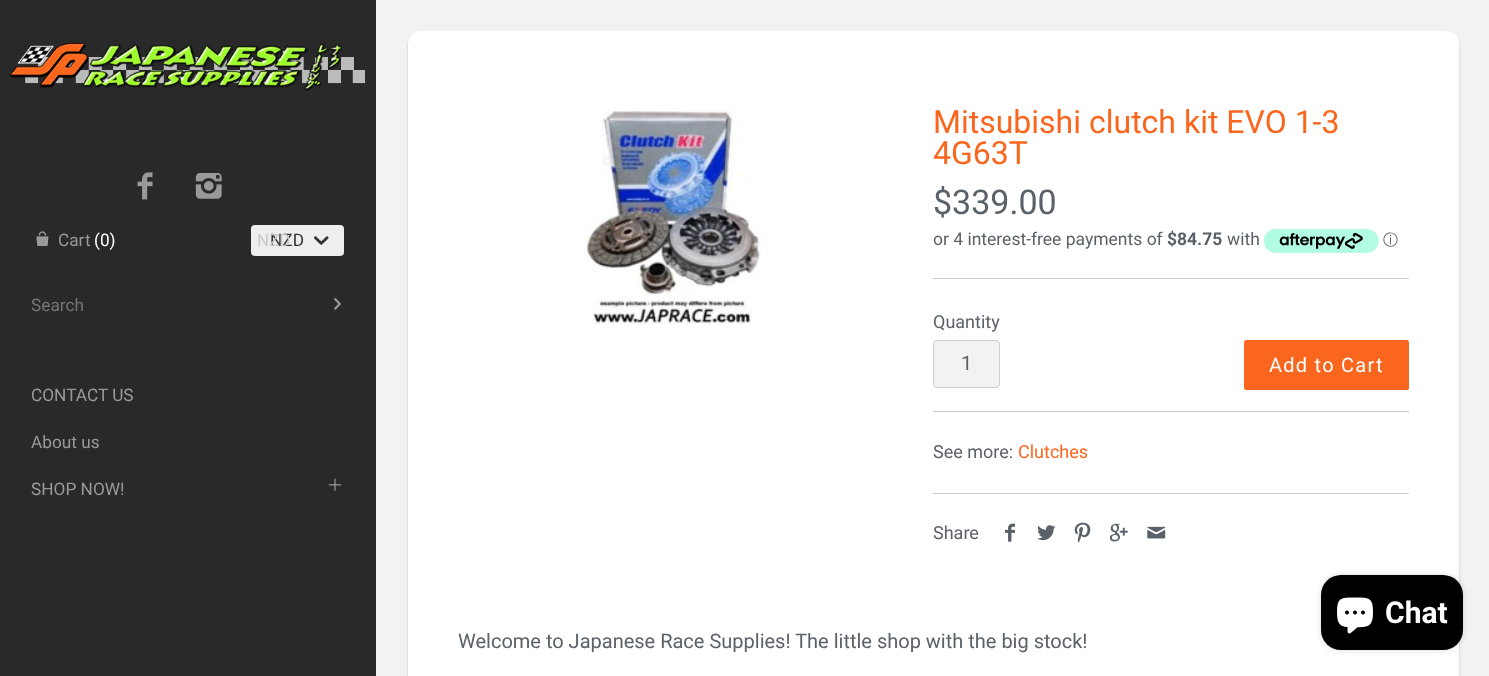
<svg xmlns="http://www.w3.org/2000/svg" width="1489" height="676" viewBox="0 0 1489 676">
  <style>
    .t1 { font: 17.25px Roboto; fill: #999; }
    .t2 { font: 17.25px Roboto; fill: #fff; }
    .t3 { font: 17.25px Roboto; fill: #333; }
    .t4 { font: 17px Roboto; fill: #c9c9c9; }
    .t5 { font: 17.25px Roboto; fill: #757575; }
    .t6 { font: 32px Roboto; fill: #fb661e; }
    .t7 { font: 34px Roboto; fill: #5b6169; }
    .t8 { font: 17.5px Roboto; fill: #5b6169; }
    .t9 { font: bold 17.5px Roboto; fill: #5b6169; }
    .t10 { font: 500 15px WenQuanYi Zen Hei; fill: #5b6169; }
    .t11 { font: 18px Roboto; fill: #5b6169; }
    .t12 { font: 20px Roboto; fill: #5b6169; }
    .t13 { font: 20px Roboto; letter-spacing: 1.25px; fill: #fff; }
    .t14 { font: 18px Roboto; fill: #fb661e; }
    .t15 { font: bold 30px Roboto; fill: #fff; }
  </style>
  <rect width="100%" height="100%" fill="#f4f1f1"/>
  <rect x="0" y="0" width="376" height="676" fill="#292929"/>
  <image x="9" y="43" width="356" height="48" href="images/1.png"/>
  <image x="137" y="172" width="16" height="28" href="images/2.png"/>
  <image x="195" y="173" width="27" height="26" href="images/3.png"/>
  <image x="36" y="231" width="13" height="15" href="images/4.png"/>
  <text x="58" y="246" class="t1">Cart</text>
  <text x="94" y="246" class="t2">(0)</text>
  <rect x="251" y="225" width="93" height="31" rx="4" fill="#eee"/>
  <text x="270" y="246" class="t3">NZD</text>
  <text x="257" y="246" class="t4">NZD</text>
  <image x="314" y="236" width="15" height="9" href="images/5.png"/>
  <text x="31" y="311" class="t5">Search</text>
  <image x="334" y="298" width="7" height="12" href="images/6.png"/>
  <text x="31" y="401" class="t1">CONTACT US</text>
  <text x="31" y="448" class="t1">About us</text>
  <text x="31" y="495" class="t1">SHOP NOW!</text>
  <image x="328" y="478" width="14" height="13" href="images/7.png"/>
  <rect x="408" y="33" width="1051" height="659" rx="13" fill="#00000033" filter="blur(1px)"/>
  <rect x="408" y="31" width="1051" height="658" rx="13" fill="#fff"/>
  <image x="583" y="110" width="179" height="215" href="images/8.png"/>
  <text x="933" y="133" class="t6">Mitsubishi clutch kit EVO 1-3</text>
  <text x="933" y="164" class="t6">4G63T</text>
  <text x="933" y="214" class="t7">$339.00</text>
  <text x="933" y="245" class="t8">or 4 interest-free payments of</text>
  <text x="1167" y="245" class="t9">$84.75</text>
  <text x="1227" y="245" class="t8">with</text>
  <image x="1264" y="228" width="115" height="25" href="images/9.png"/>
  <text x="1383" y="245" class="t10">ⓘ</text>
  <rect x="933" y="278" width="476" height="1" fill="#ccc"/>
  <text x="933" y="328" class="t11">Quantity</text>
  <rect x="933.5" y="340.5" width="66" height="47" rx="3.5" fill="#f4f1f1" stroke="#cdcdcf"/>
  <text x="961" y="370" class="t12">1</text>
  <rect x="1244" y="340" width="165" height="50" rx="2.5" fill="#fb661e"/>
  <text x="1269" y="372" class="t13">Add to Cart</text>
  <rect x="933" y="411" width="476" height="1" fill="#ccc"/>
  <text x="933" y="458" class="t11">See more:</text>
  <text x="1018" y="458" class="t14">Clutches</text>
  <rect x="933" y="493" width="476" height="1" fill="#ccc"/>
  <text x="933" y="539" class="t11">Share</text>
  <image x="1005" y="523" width="10" height="19" href="images/10.png"/>
  <image x="1037" y="525" width="19" height="16" href="images/11.png"/>
  <image x="1074" y="522" width="17" height="21" href="images/12.png"/>
  <image x="1109" y="523" width="19" height="19" href="images/13.png"/>
  <image x="1147" y="526" width="19" height="13" href="images/14.png"/>
  <text x="458" y="648" class="t12">Welcome to Japanese Race Supplies! The little shop with the big stock!</text>
  <rect x="1321" y="575" width="142" height="75" rx="20" fill="#00000026" filter="blur(3px)"/>
  <rect x="1321" y="575" width="142" height="75" rx="20" fill="#000"/>
  <image x="1337" y="597" width="36" height="37" href="images/15.png"/>
  <text x="1385" y="623" class="t15">Chat</text>
</svg>
